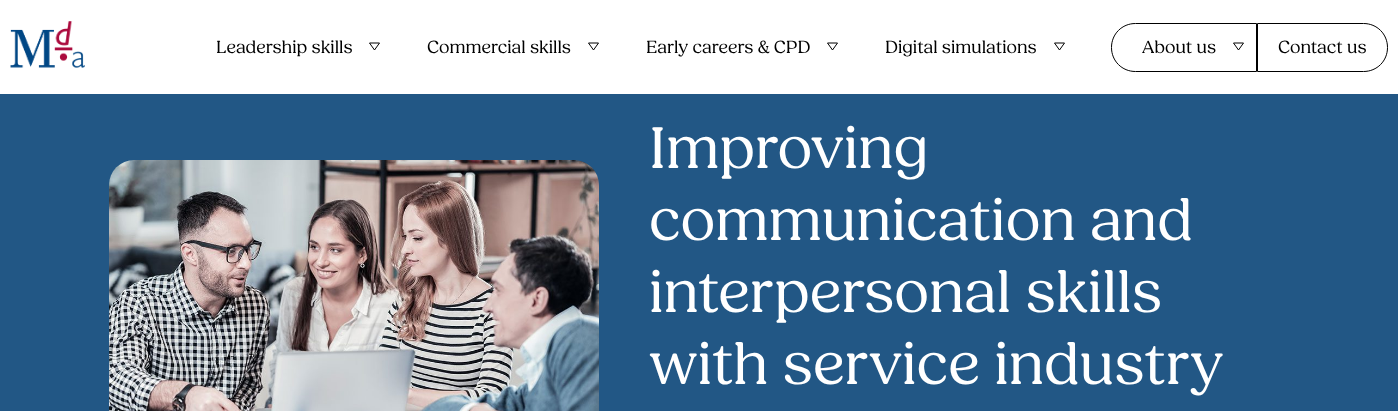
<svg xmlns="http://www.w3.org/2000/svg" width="1398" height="411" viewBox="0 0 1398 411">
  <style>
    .t1 { font: 18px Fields; fill: #000; }
    .t2 { font: 60px Fields; fill: #fff; }
  </style>
  <rect width="100%" height="100%" fill="#225785"/>
  <rect x="0" y="0" width="1398" height="94" fill="#fff"/>
  <image x="10" y="21" width="75" height="47" href="images/1.png"/>
  <text x="216" y="53" class="t1">Leadership skills</text>
  <path d="M379.5 43L374.5 50L369.5 43Z" fill="none" stroke="#000"/>
  <text x="427" y="53" class="t1">Commercial skills</text>
  <path d="M598.5 43L593.5 50L588.5 43Z" fill="none" stroke="#000"/>
  <text x="646" y="53" class="t1">Early careers &amp; CPD</text>
  <path d="M837.5 43L832.5 50L827.5 43Z" fill="none" stroke="#000"/>
  <text x="885" y="53" class="t1">Digital simulations</text>
  <path d="M1064.5 43L1059.5 50L1054.5 43Z" fill="none" stroke="#000"/>
  <path d="M1135.5 23.5H1256.5V71.5H1135.5C1122 71.5 1111.5 61 1111.5 47.5C1111.5 34 1122 23.5 1135.5 23.5Z" fill="none" stroke="#000"/>
  <text x="1142" y="53" class="t1">About us</text>
  <path d="M1243.5 43L1238.5 50L1233.5 43Z" fill="none" stroke="#000"/>
  <path d="M1257.5 23.5H1363.5C1377 23.5 1387.5 34 1387.5 47.5C1387.5 61 1377 71.5 1363.5 71.5H1257.5Z" fill="none" stroke="#000"/>
  <text x="1278" y="53" class="t1">Contact us</text>
  <image x="109" y="160" width="490" height="251" href="images/2.png"/>
  <text x="649" y="168" class="t2">Improving</text>
  <text x="649" y="240" class="t2">communication and</text>
  <text x="649" y="312" class="t2">interpersonal skills</text>
  <text x="649" y="384" class="t2">with service industry</text>
</svg>
